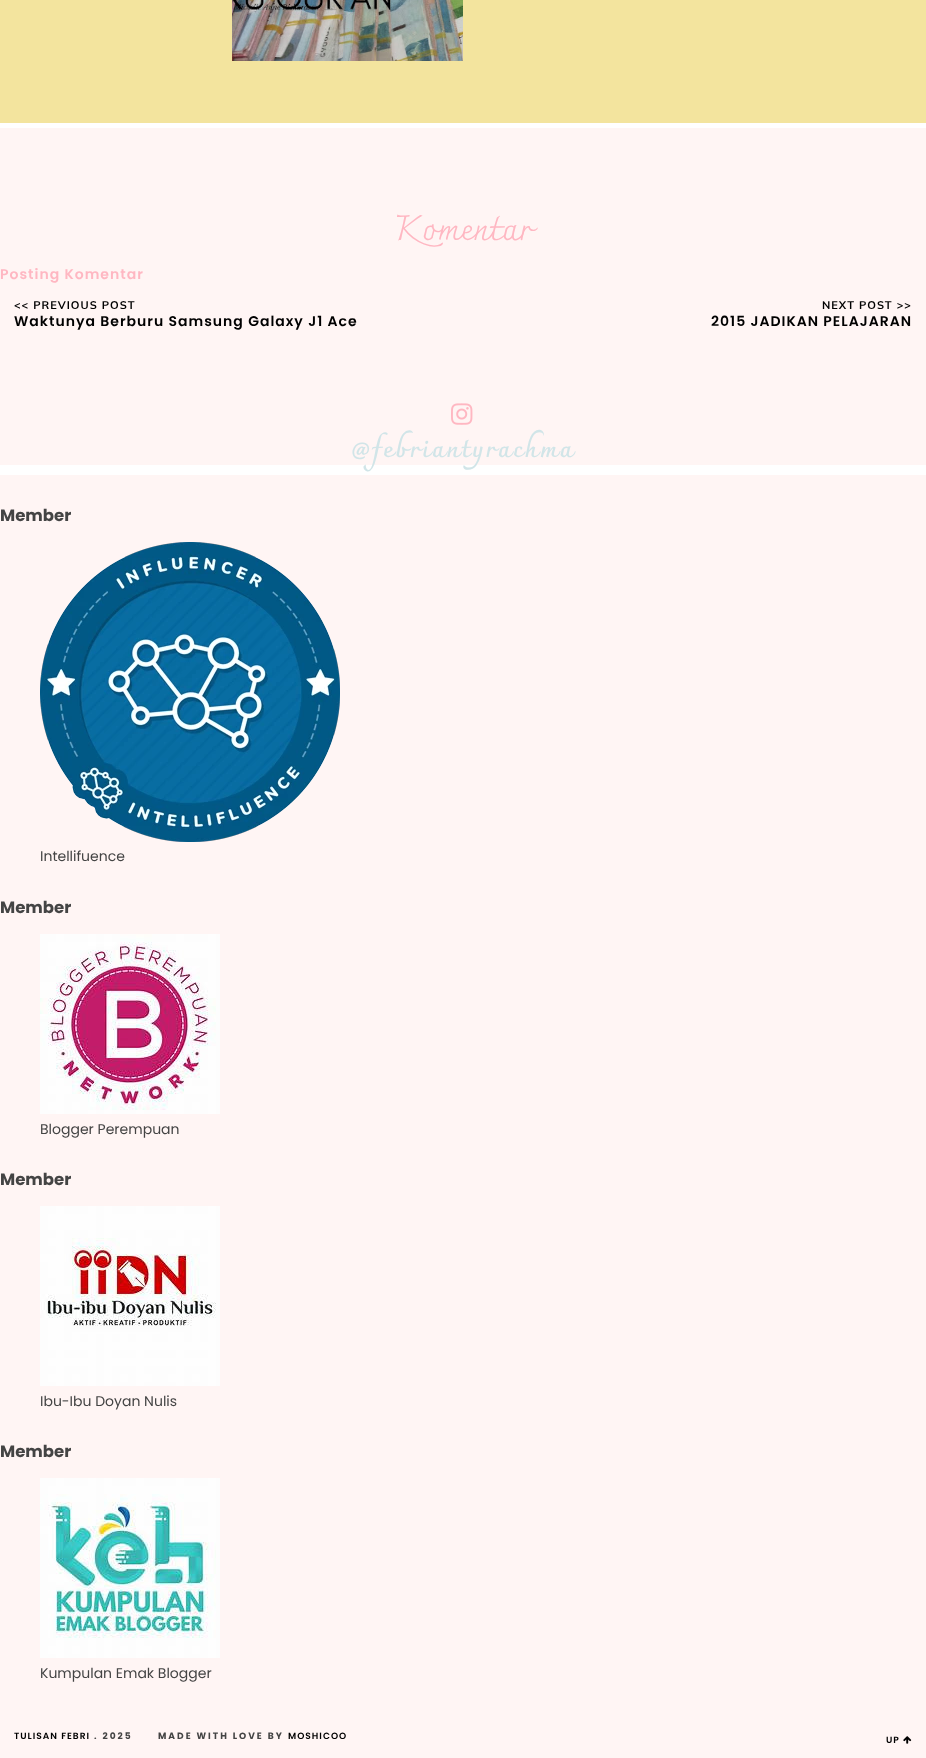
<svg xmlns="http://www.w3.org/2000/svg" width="926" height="1758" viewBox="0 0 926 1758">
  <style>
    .t1 { font: 35px Charmonman; fill: #ffb7c2; }
    .t2 { font: 600 14px Poppins; letter-spacing: 1px; fill: #ffb7c2; }
    .t3 { font: bold 11px Muli; letter-spacing: 1px; fill: #000; }
    .t4 { font: 600 14px Poppins; letter-spacing: 1px; fill: #000; }
    .t5 { font: bold 25px Charmonman; letter-spacing: 2px; fill: #d1e5e8; }
    .t6 { font: bold 16.5px Poppins; fill: #444; }
    .t7 { font: 14px Poppins; fill: #444; }
    .t8 { font: 600 9.1px Poppins; letter-spacing: 1px; fill: #000; }
    .t9 { font: bold 9.1px Poppins; letter-spacing: 2px; fill: #444; }
  </style>
  <rect width="100%" height="100%" fill="#fff5f4"/>
  <rect x="0" y="0" width="926" height="123" fill="#f3e49e"/>
  <rect x="0" y="123" width="926" height="5" fill="#fff"/>
  <image x="232" y="0" width="231" height="61" href="images/1.png"/>
  <text x="394" y="240" class="t1">Komentar</text>
  <text x="0" y="279" class="t2">Posting Komentar</text>
  <text x="14" y="309" class="t3">&lt;&lt; PREVIOUS POST</text>
  <text x="14" y="326" class="t4">Waktunya Berburu Samsung Galaxy J1 Ace</text>
  <text x="822" y="309" class="t3">NEXT POST &gt;&gt;</text>
  <text x="711" y="326" class="t4">2015 JADIKAN PELAJARAN</text>
  <rect x="0" y="465" width="926" height="10" fill="#fff"/>
  <image x="451" y="403" width="22" height="22" href="images/2.png"/>
  <text x="351" y="457" class="t5">@febriantyrachma</text>
  <text x="0" y="521" class="t6">Member</text>
  <image x="40" y="542" width="300" height="300" href="images/3.png"/>
  <text x="40" y="861" class="t7">Intellifuence</text>
  <text x="0" y="913" class="t6">Member</text>
  <image x="40" y="934" width="180" height="180" href="images/4.png"/>
  <text x="40" y="1134" class="t7">Blogger Perempuan</text>
  <text x="0" y="1185" class="t6">Member</text>
  <image x="40" y="1206" width="180" height="180" href="images/5.png"/>
  <text x="40" y="1406" class="t7">Ibu-Ibu Doyan Nulis</text>
  <text x="0" y="1457" class="t6">Member</text>
  <image x="40" y="1478" width="180" height="180" href="images/6.png"/>
  <text x="40" y="1678" class="t7">Kumpulan Emak Blogger</text>
  <text x="14" y="1739" class="t8">TULISAN FEBRI</text>
  <text x="94" y="1739" class="t9">. 2025</text>
  <text x="158" y="1739" class="t9">MADE WITH LOVE BY</text>
  <text x="288" y="1739" class="t8">MOSHICOO</text>
  <text x="886" y="1743" class="t8">UP</text>
  <image x="903" y="1736" width="9" height="8" href="images/7.png"/>
</svg>
